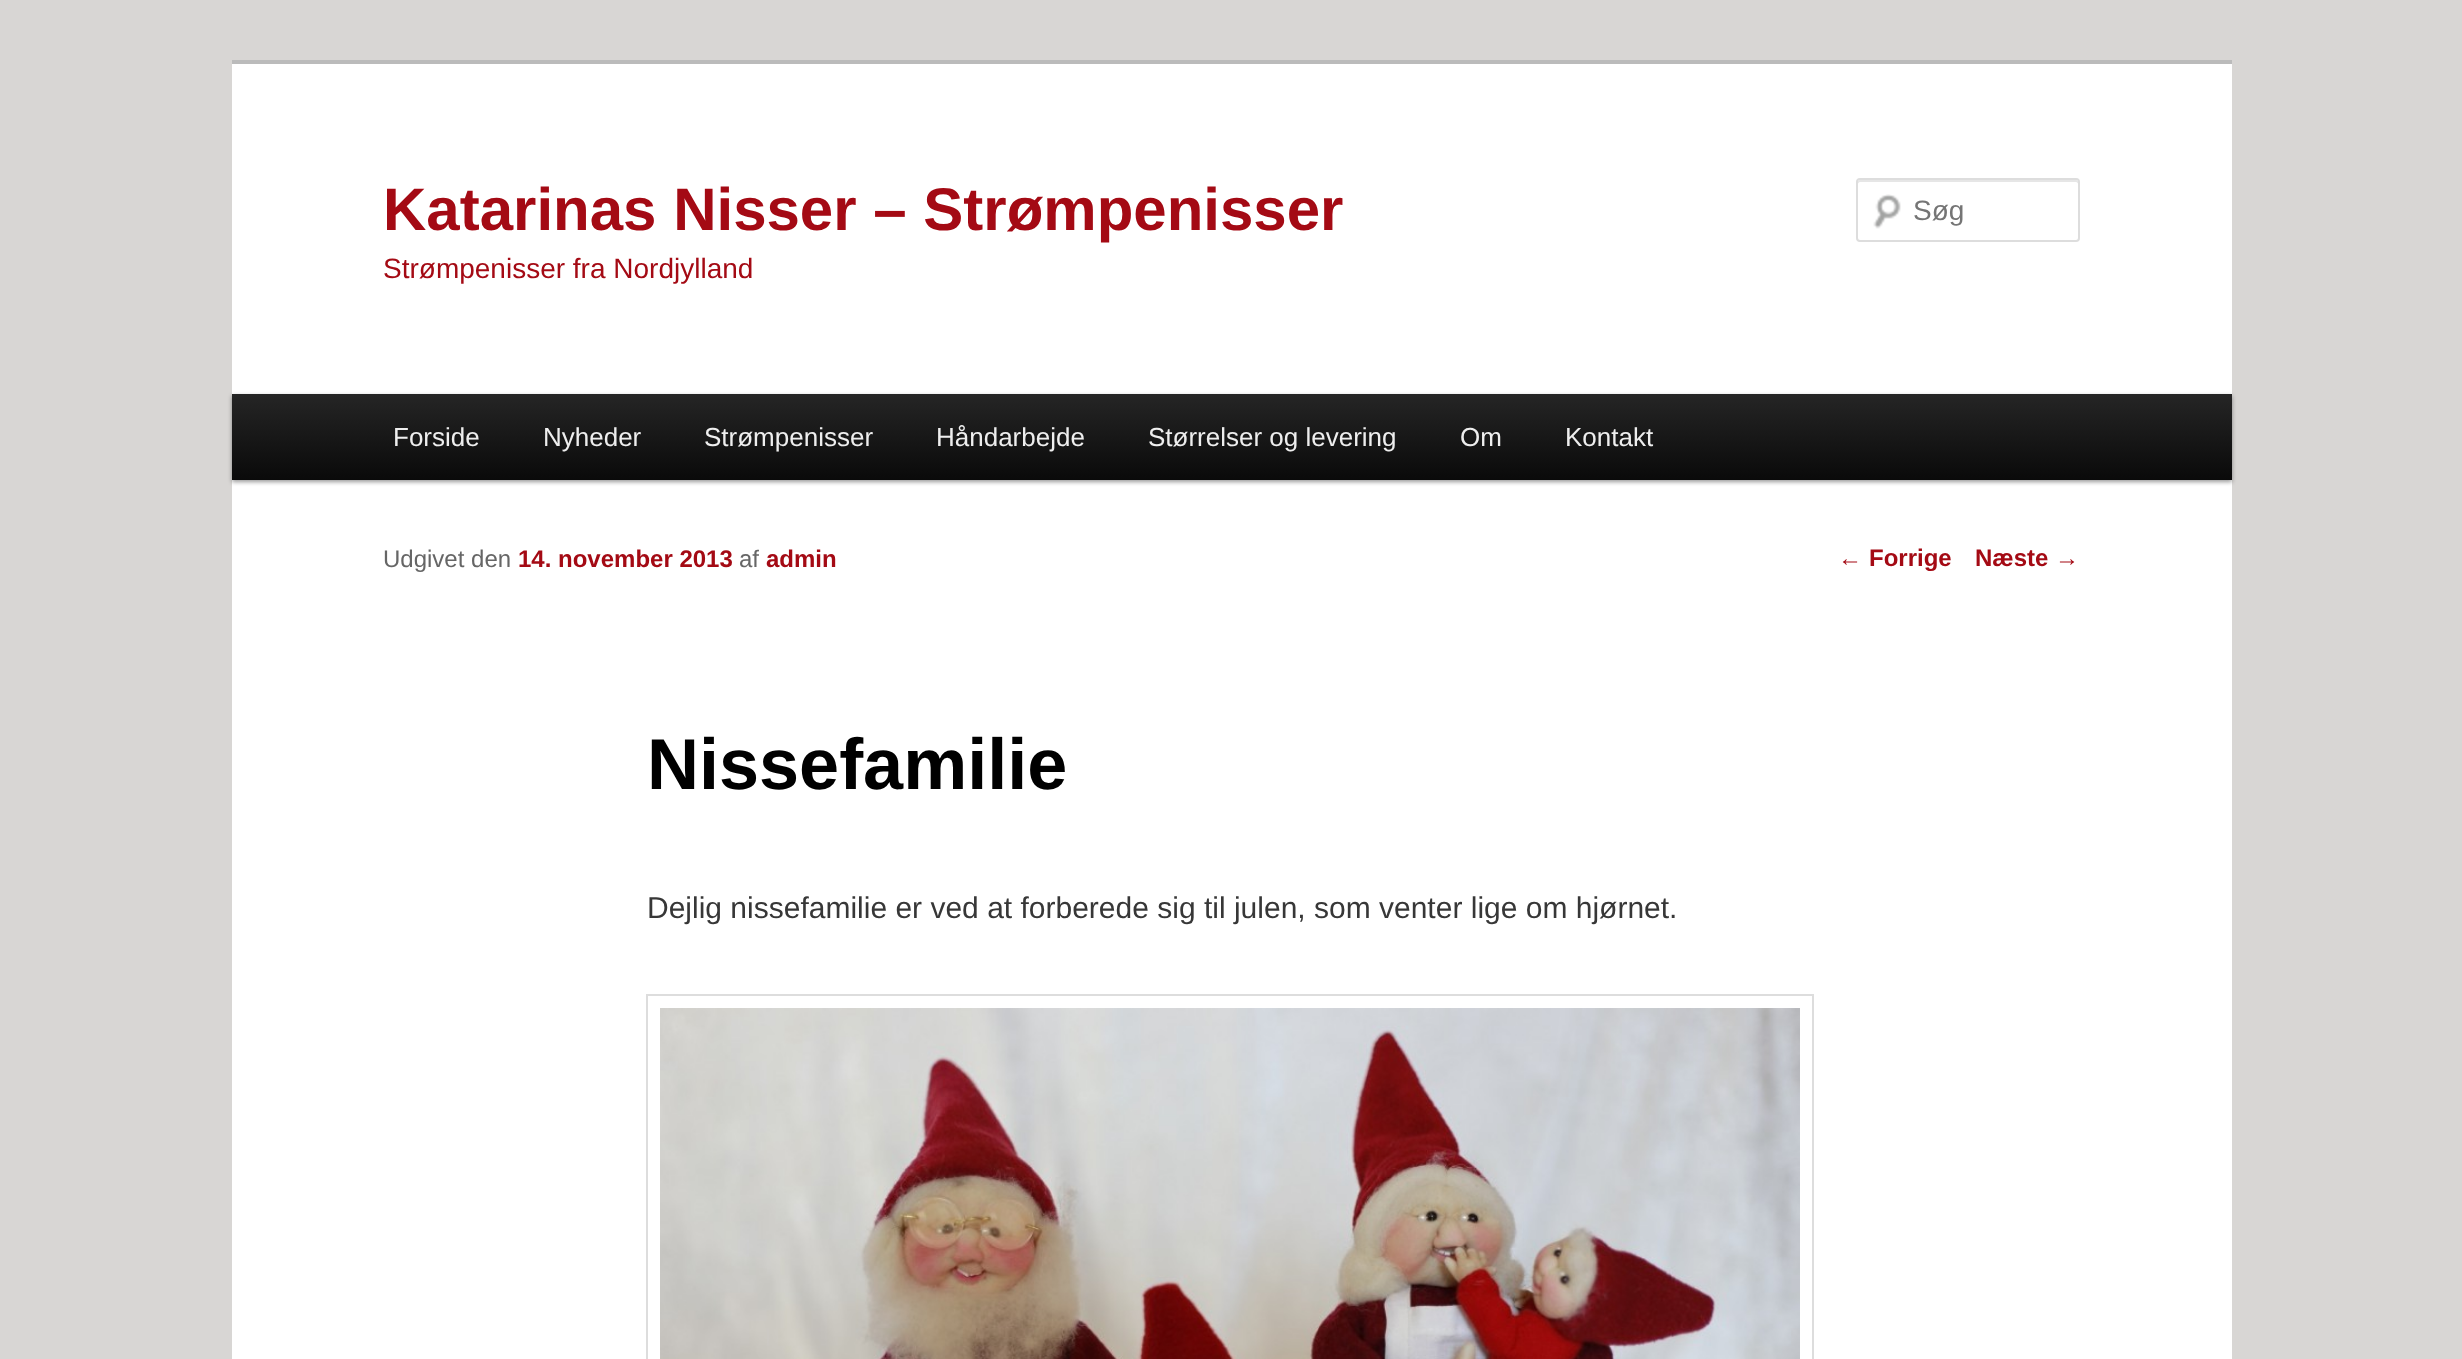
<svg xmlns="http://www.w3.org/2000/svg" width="2462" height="1359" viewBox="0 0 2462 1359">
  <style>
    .t1 { font: bold 60px Liberation Sans; fill: #a40a14; }
    .t2 { font: 28px Liberation Sans; fill: #a40a14; }
    .t3 { font: 28px Liberation Sans; fill: #757575; }
    .t4 { font: 26px Liberation Sans; fill: #eee; }
    .t5 { font: 24px Liberation Sans; fill: #666; }
    .t6 { font: bold 24px Liberation Sans; fill: #a40a14; }
    .t7 { font: bold 72px Liberation Sans; fill: #000; }
    .t8 { font: 30px Liberation Sans; fill: #373737; }
    .t9 { font: 24px Liberation Sans; fill: #a40a14; }
  </style>
  <defs>
    <linearGradient id="g1" gradientUnits="userSpaceOnUse" x1="1232" y1="394" x2="1232" y2="480"><stop offset="0" stop-color="#252525"/><stop offset="1" stop-color="#0a0a0a"/></linearGradient>
  </defs>
  <rect width="100%" height="100%" fill="#d8d6d4"/>
  <rect x="232" y="64" width="2000" height="1295" fill="#fff"/>
  <rect x="232" y="60" width="2000" height="4" fill="#bbb"/>
  <text x="383" y="230" class="t1">Katarinas Nisser – Strømpenisser</text>
  <text x="383" y="278" class="t2">Strømpenisser fra Nordjylland</text>
  <image x="1873" y="194" width="28" height="35" href="images/1.png"/>
  <path d="M1860 182H2076C2077 182 2078 183 2078 184V182C2078 181 2077 180 2076 180H1860C1859 180 1858 181 1858 182V184C1858 183 1859 182 1860 182Z" fill="#e6e6e6"/>
  <rect x="1857" y="179" width="222" height="62" rx="3" fill="none" stroke="#ddd" stroke-width="2"/>
  <text x="1913" y="220" class="t3">Søg</text>
  <rect x="232" y="396" width="2000" height="86" fill="#00000066" filter="blur(2px)"/>
  <rect x="232" y="394" width="2000" height="86" fill="url(#g1)"/>
  <text x="393" y="446" class="t4">Forside</text>
  <text x="543" y="446" class="t4">Nyheder</text>
  <text x="704" y="446" class="t4">Strømpenisser</text>
  <text x="936" y="446" class="t4">Håndarbejde</text>
  <text x="1148" y="446" class="t4">Størrelser og levering</text>
  <text x="1460" y="446" class="t4">Om</text>
  <text x="1565" y="446" class="t4">Kontakt</text>
  <text x="383" y="567" class="t5">Udgivet den</text>
  <text x="518" y="567" class="t6">14. november 2013</text>
  <text x="739" y="567" class="t5">af</text>
  <text x="766" y="567" class="t6">admin</text>
  <text x="647" y="789" class="t7">Nissefamilie</text>
  <text x="647" y="918" class="t8">Dejlig nissefamilie er ved at forberede sig til julen, som venter lige om hjørnet.</text>
  <rect x="647" y="995" width="1166" height="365" fill="none" stroke="#ddd" stroke-width="2"/>
  <image x="660" y="1008" width="1140" height="351" href="images/2.png"/>
  <text x="1838" y="566" class="t9">←</text>
  <text x="1869" y="566" class="t6">Forrige</text>
  <text x="1975" y="566" class="t6">Næste</text>
  <text x="2055" y="566" class="t9">→</text>
</svg>
